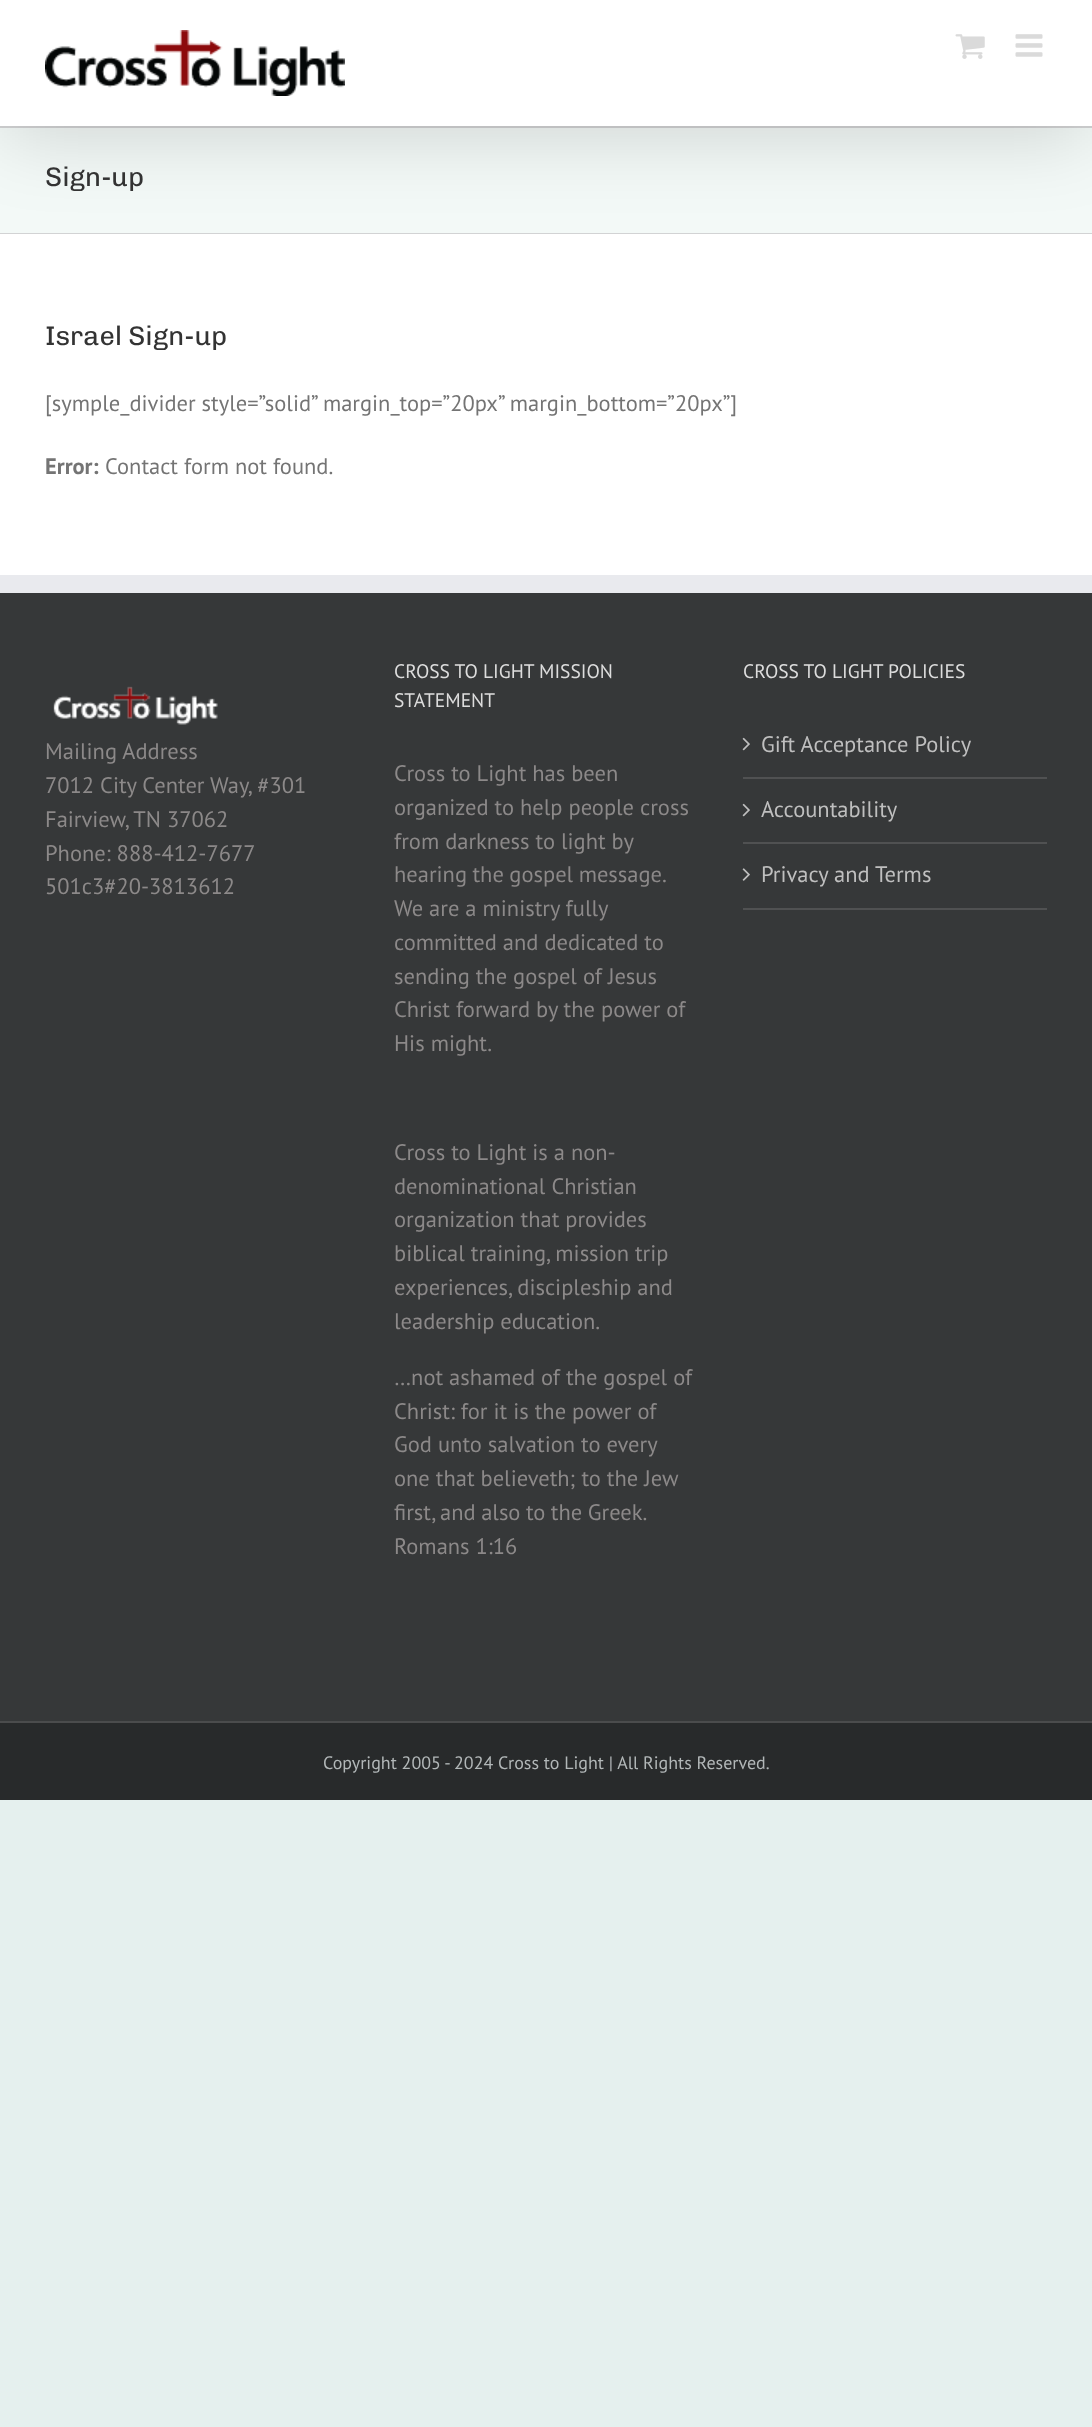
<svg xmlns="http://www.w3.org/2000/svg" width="1092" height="2427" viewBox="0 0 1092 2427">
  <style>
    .t1 { font: 500 27px Chivo; fill: #333; }
    .t2 { font: 22.5px PT Sans; fill: #747474; }
    .t3 { font: bold 22.5px PT Sans; fill: #747474; }
    .t4 { font: 22.5px PT Sans; fill: #8c8989; }
    .t5 { font: 19.5px PT Sans; fill: #ddd; }
    .t6 { font: 22.5px PT Sans; fill: #bfbfbf; }
    .t7 { font: 18px PT Sans; fill: #b2b7b8; }
  </style>
  <rect width="100%" height="100%" fill="#e5f0ee"/>
  <rect x="0" y="128" width="1092" height="105" fill="#f3f9f7"/>
  <rect x="0" y="126" width="1092" height="2" fill="#d2d3d4"/>
  <rect x="0" y="233" width="1092" height="1" fill="#d2d3d4"/>
  <rect x="0" y="234" width="1092" height="341" fill="#fff"/>
  <rect x="3" y="18" width="1086" height="120" fill="#00000024" filter="blur(37.5px)"/>
  <rect x="0" y="0" width="1092" height="126" fill="#fff"/>
  <image x="45" y="30" width="300" height="66" href="images/1.png"/>
  <image x="955" y="34" width="30" height="25" href="images/2.png"/>
  <image x="1015" y="34" width="28" height="23" href="images/3.png"/>
  <text x="45" y="186" class="t1">Sign-up</text>
  <text x="45" y="345" class="t1">Israel Sign-up</text>
  <text x="45" y="411" class="t2">[symple_divider style=”solid” margin_top=”20px” margin_bottom=”20px”]</text>
  <text x="45" y="474" class="t3">Error:</text>
  <text x="105" y="474" class="t2">Contact form not found.</text>
  <rect x="0" y="593" width="1092" height="1128" fill="#363839"/>
  <rect x="0" y="575" width="1092" height="18" fill="#e9eaee"/>
  <image x="53" y="686" width="165" height="39" href="images/4.png"/>
  <text x="45" y="759" class="t4">Mailing Address</text>
  <text x="45" y="793" class="t4">7012 City Center Way, #301</text>
  <text x="45" y="827" class="t4">Fairview, TN 37062</text>
  <text x="45" y="861" class="t4">Phone: 888-412-7677</text>
  <text x="45" y="894" class="t4">501c3#20-3813612</text>
  <text x="394" y="678" class="t5">CROSS TO LIGHT MISSION</text>
  <text x="394" y="707" class="t5">STATEMENT</text>
  <text x="394" y="781" class="t4">Cross to Light has been</text>
  <text x="394" y="815" class="t4">organized to help people cross</text>
  <text x="394" y="849" class="t4">from darkness to light by</text>
  <text x="394" y="882" word-spacing="-0.5" class="t4">hearing the gospel message.</text>
  <text x="394" y="916" class="t4">We are a ministry fully</text>
  <text x="394" y="950" class="t4">committed and dedicated to</text>
  <text x="394" y="984" class="t4">sending the gospel of Jesus</text>
  <text x="394" y="1017" class="t4">Christ forward by the power of</text>
  <text x="394" y="1051" class="t4">His might.</text>
  <text x="394" y="1160" class="t4">Cross to Light is a non-</text>
  <text x="394" y="1194" class="t4">denominational Christian</text>
  <text x="394" y="1227" class="t4">organization that provides</text>
  <text x="394" y="1261" class="t4">biblical training, mission trip</text>
  <text x="394" y="1295" class="t4">experiences, discipleship and</text>
  <text x="394" y="1329" class="t4">leadership education.</text>
  <text x="394" y="1385" class="t4">…not ashamed of the gospel of</text>
  <text x="394" y="1419" class="t4">Christ: for it is the power of</text>
  <text x="394" y="1452" class="t4">God unto salvation to every</text>
  <text x="394" y="1486" class="t4">one that believeth; to the Jew</text>
  <text x="394" y="1520" word-spacing="-0.5" class="t4">first, and also to the Greek.</text>
  <text x="394" y="1554" class="t4">Romans 1:16</text>
  <text x="743" y="678" class="t5">CROSS TO LIGHT POLICIES</text>
  <rect x="743" y="777" width="304" height="2" fill="#505152"/>
  <image x="742" y="737" width="8" height="14" href="images/5.png"/>
  <text x="761" y="752" class="t6">Gift Acceptance Policy</text>
  <rect x="743" y="842" width="304" height="2" fill="#505152"/>
  <image x="742" y="803" width="8" height="14" href="images/5.png"/>
  <text x="761" y="817" class="t6">Accountability</text>
  <rect x="743" y="908" width="304" height="2" fill="#505152"/>
  <image x="742" y="868" width="8" height="13" href="images/6.png"/>
  <text x="761" y="882" class="t6">Privacy and Terms</text>
  <rect x="0" y="1723" width="1092" height="77" fill="#282a2b"/>
  <rect x="0" y="1721" width="1092" height="2" fill="#4b4c4d"/>
  <text x="323" y="1769" class="t7">Copyright 2005 - 2024 Cross to Light | All Rights Reserved.</text>
</svg>
